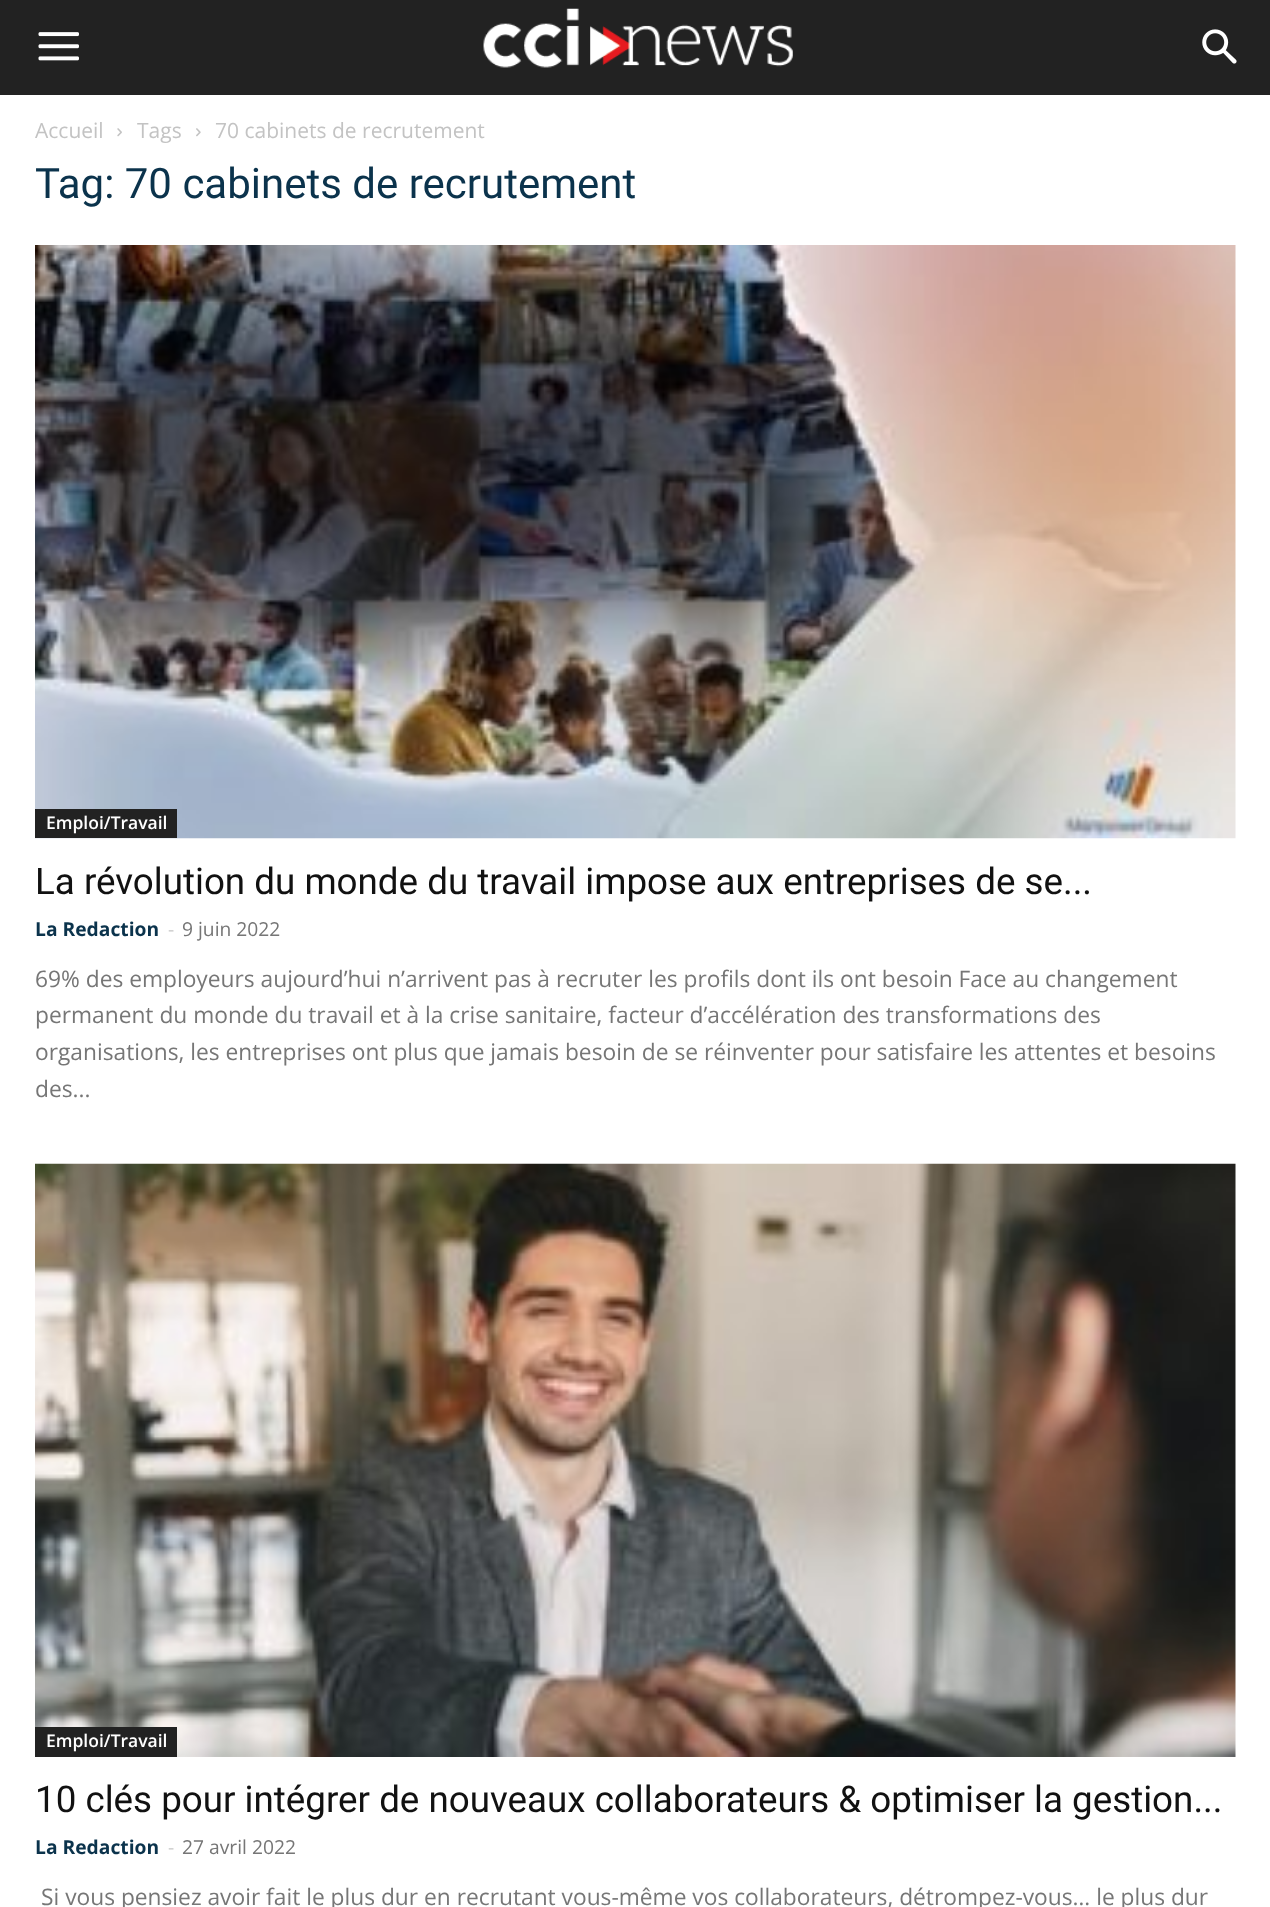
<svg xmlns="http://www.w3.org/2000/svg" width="1270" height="1907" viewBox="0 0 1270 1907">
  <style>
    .t1 { font: 21px Open Sans; fill: #c3c3c3; }
    .t2 { font: 42px Roboto; fill: #0b334c; }
    .t3 { font: 600 17.5px Open Sans; fill: #fff; }
    .t4 { font: 36.75px Roboto; fill: #111; }
    .t5 { font: bold 19.25px Open Sans; fill: #0b334c; }
    .t6 { font: 19.25px Open Sans; fill: #ccc; }
    .t7 { font: 19.25px Open Sans; fill: #767676; }
    .t8 { font: 22.75px Open Sans; fill: #767676; }
  </style>
  <rect width="100%" height="100%" fill="#fff"/>
  <rect x="0" y="0" width="1270" height="95" fill="#222"/>
  <image x="38" y="32" width="41" height="29" href="images/1.png"/>
  <image x="483" y="8" width="310" height="60" href="images/2.png"/>
  <image x="1202" y="29" width="35" height="35" href="images/3.png"/>
  <text x="35" y="138" class="t1">Accueil</text>
  <image x="117" y="128" width="5" height="9" href="images/4.png"/>
  <text x="137" y="138" class="t1">Tags</text>
  <image x="196" y="128" width="5" height="9" href="images/5.png"/>
  <text x="215" y="138" class="t1">70 cabinets de recrutement</text>
  <text x="35" y="198" class="t2">Tag: 70 cabinets de recrutement</text>
  <image x="35" y="245" width="1201" height="594" href="images/6.png"/>
  <rect x="35" y="809" width="142" height="29" fill="#222"/>
  <text x="46" y="829" class="t3">Emploi/Travail</text>
  <text x="35" y="894" class="t4">La révolution du monde du travail impose aux entreprises de se...</text>
  <text x="35" y="936" class="t5">La Redaction</text>
  <text x="168" y="936" class="t6">-</text>
  <text x="182" y="936" class="t7">9 juin 2022</text>
  <text x="35" y="987" class="t8">69% des employeurs aujourd’hui n’arrivent pas à recruter les profils dont ils ont besoin Face au changement</text>
  <text x="35" y="1023" class="t8">permanent du monde du travail et à la crise sanitaire, facteur d’accélération des transformations des</text>
  <text x="35" y="1060" class="t8">organisations, les entreprises ont plus que jamais besoin de se réinventer pour satisfaire les attentes et besoins</text>
  <text x="35" y="1097" class="t8">des...</text>
  <image x="35" y="1163" width="1201" height="594" href="images/7.png"/>
  <rect x="35" y="1727" width="142" height="30" fill="#222"/>
  <text x="46" y="1747" class="t3">Emploi/Travail</text>
  <text x="35" y="1812" class="t4">10 clés pour intégrer de nouveaux collaborateurs &amp; optimiser la gestion...</text>
  <text x="35" y="1854" class="t5">La Redaction</text>
  <text x="168" y="1854" class="t6">-</text>
  <text x="182" y="1854" class="t7">27 avril 2022</text>
  <text x="41" y="1905" class="t8">Si vous pensiez avoir fait le plus dur en recrutant vous-même vos collaborateurs, détrompez-vous… le plus dur</text>
</svg>
